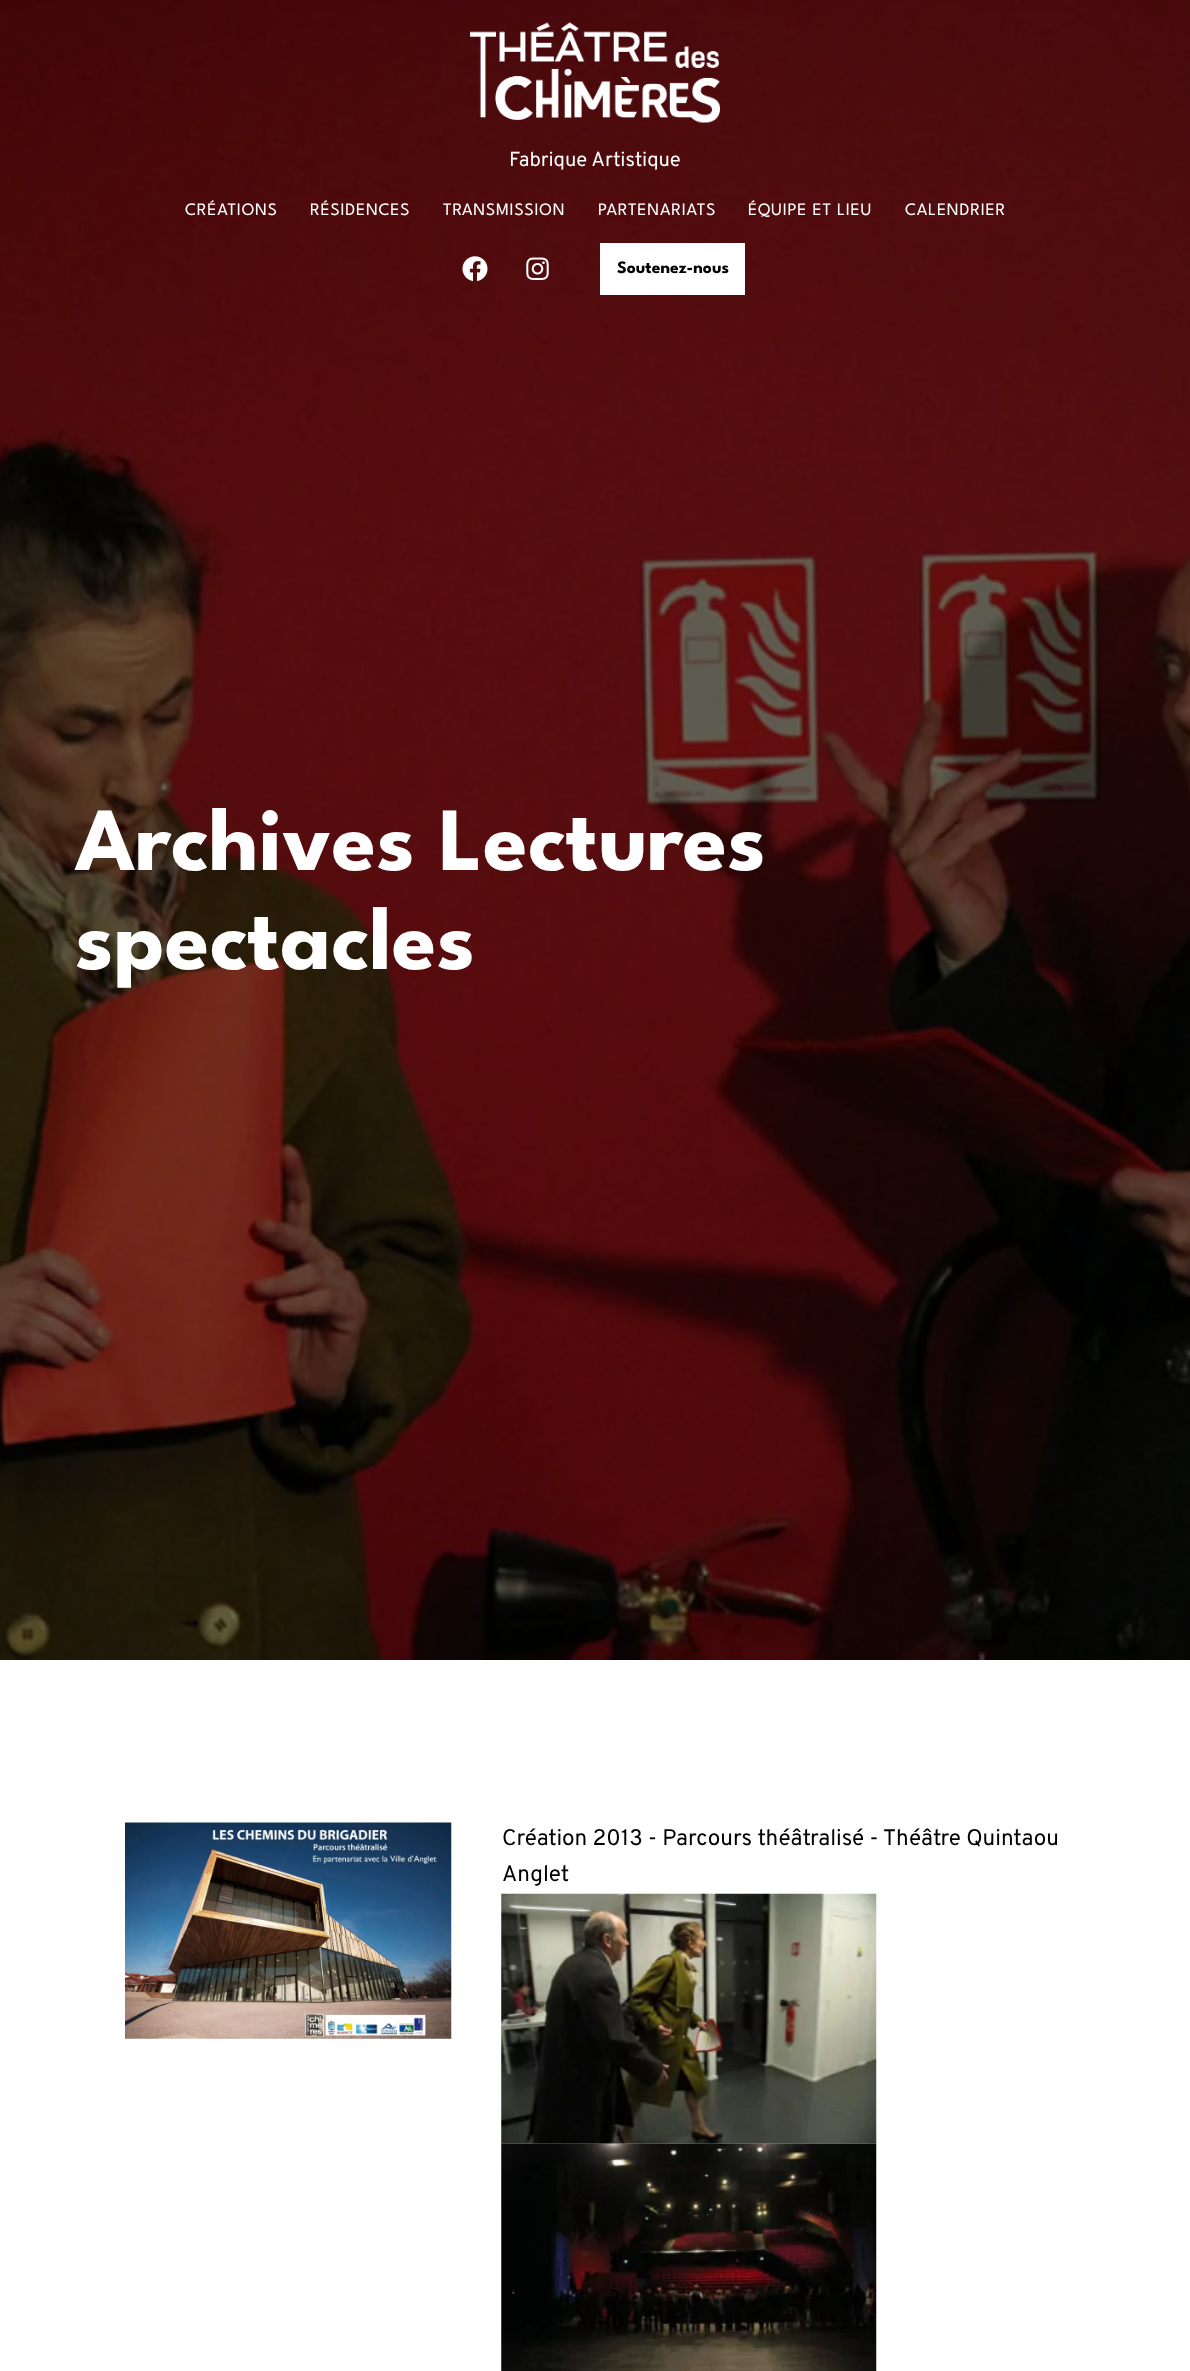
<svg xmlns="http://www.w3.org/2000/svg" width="1190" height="2371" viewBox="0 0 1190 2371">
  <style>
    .t1 { font: 20.25px Overpass; fill: #fff; }
    .t2 { font: 17.5px League Spartan; letter-spacing: 0.75px; fill: #fff; }
    .t3 { font: bold 17.5px League Spartan; fill: #000; }
    .t4 { font: bold 90px League Spartan; fill: #fff; }
    .t5 { font: 22.5px Overpass; fill: #000; }
  </style>
  <rect width="100%" height="100%" fill="#fff"/>
  <image x="0" y="0" width="1190" height="1660" href="images/4.png"/>
  <image x="470" y="22" width="250" height="101" href="images/1.png"/>
  <text x="509" y="166" class="t1">Fabrique Artistique</text>
  <text x="185" y="215" class="t2">CRÉATIONS</text>
  <text x="310" y="215" class="t2">RÉSIDENCES</text>
  <text x="443" y="215" class="t2">TRANSMISSION</text>
  <text x="598" y="215" class="t2">PARTENARIATS</text>
  <text x="748" y="215" class="t2">ÉQUIPE ET LIEU</text>
  <text x="905" y="215" class="t2">CALENDRIER</text>
  <image x="462" y="256" width="26" height="26" href="images/2.png"/>
  <image x="526" y="257" width="23" height="23" href="images/3.png"/>
  <rect x="600" y="243" width="145" height="52" fill="#fff"/>
  <text x="617" y="273" class="t3">Soutenez-nous</text>
  <text x="75" y="870" class="t4">Archives Lectures</text>
  <text x="75" y="969" class="t4">spectacles</text>
  <image x="125" y="1822" width="327" height="217" href="images/5.png"/>
  <text x="502" y="1845" class="t5">Création 2013 - Parcours théâtralisé - Théâtre Quintaou</text>
  <text x="502" y="1881" class="t5">Anglet</text>
  <image x="501" y="1893" width="376" height="251" href="images/6.png"/>
  <image x="501" y="2143" width="376" height="228" href="images/7.png"/>
</svg>
